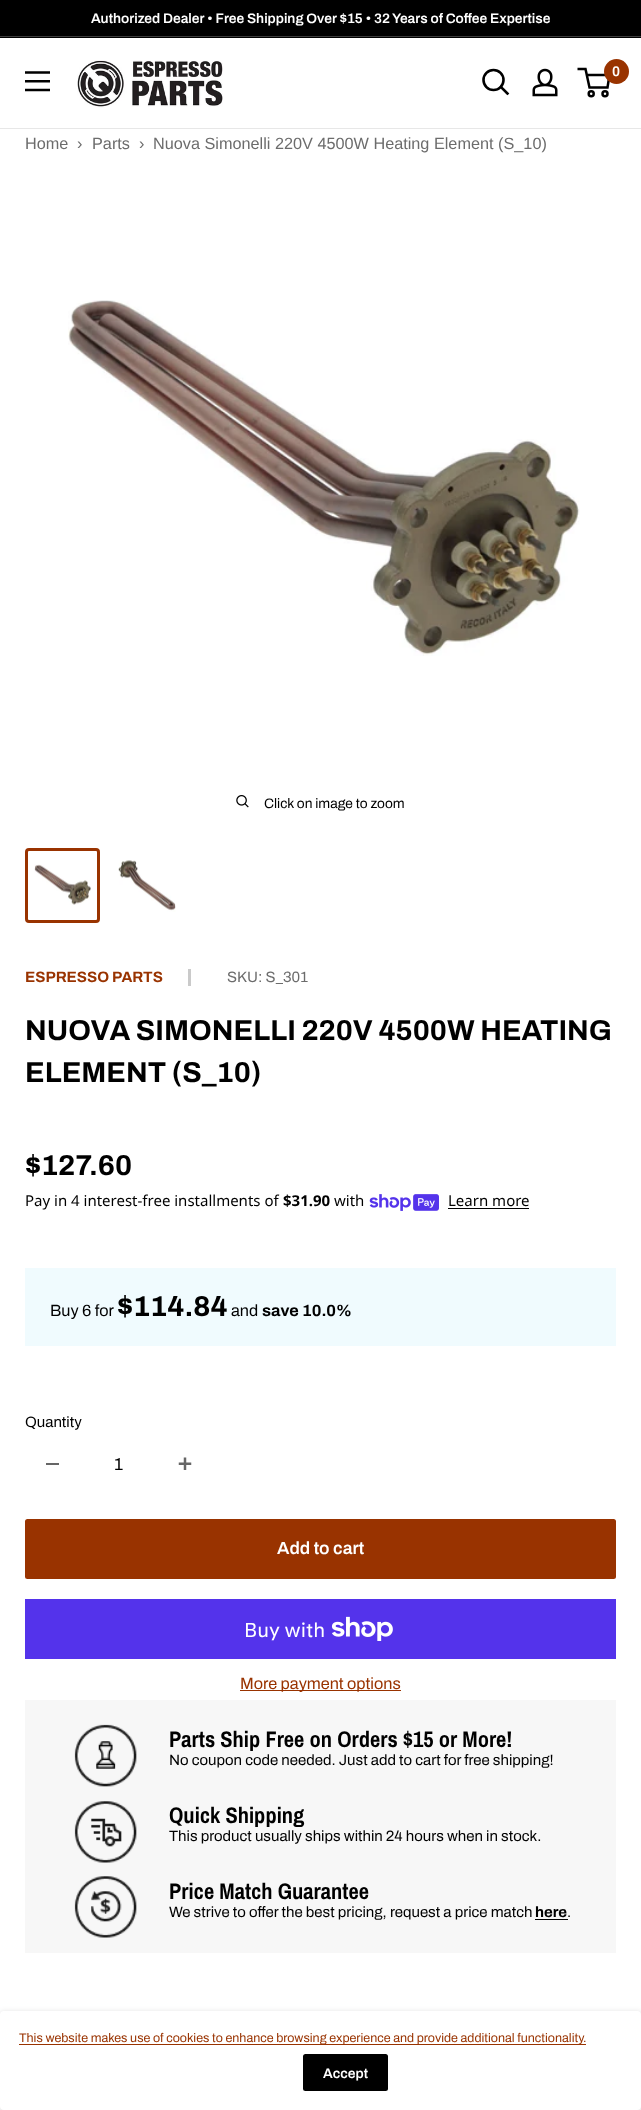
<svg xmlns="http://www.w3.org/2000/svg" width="641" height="2110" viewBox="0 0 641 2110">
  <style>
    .t1 { font: 600 13.75px Archivo; fill: #fff; }
    .t2 { font: 600 14px Archivo; fill: #fff; }
    .t3 { font: 16.25px Liberation Sans; fill: #6c6c6c; }
    .t4 { font: 13.75px Archivo; fill: #000; }
    .t5 { font: bold 15px Archivo; fill: #930; }
    .t6 { font: 15px Archivo; fill: #6c6c6c; }
    .t7 { font: bold 28.75px Archivo; fill: #000; }
    .t8 { font: 15px Noto Sans; fill: #000; }
    .t9 { font: bold 15px Noto Sans; fill: #000; }
    .t10 { font: 16.25px Archivo; fill: #000; }
    .t11 { font: bold 16.25px Archivo; fill: #000; }
    .t12 { font: 15px Archivo; fill: #000; }
    .t13 { font: 17.5px Archivo; fill: #000; }
    .t14 { font: 600 17.5px Archivo; fill: #fff; }
    .t15 { font: 20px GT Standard; fill: #fff; }
    .t16 { font: 16.25px Archivo; fill: #930; }
    .t17 { font: bold 22.5px Archivo Narrow; fill: #000; }
    .t18 { font: bold 15px Archivo; fill: #000; }
    .t19 { font: 12.5px Archivo; fill: #930; }
  </style>
  <rect width="100%" height="100%" fill="#fff"/>
  <rect x="0" y="0" width="641" height="38" fill="#000"/>
  <rect x="0" y="36" width="641" height="1" fill="#3d3d3d"/>
  <text x="91" y="23" class="t1">Authorized Dealer • Free Shipping Over $15 • 32 Years of Coffee Expertise</text>
  <rect x="0" y="128" width="641" height="1" fill="#e7e7e7"/>
  <image x="25" y="71" width="25" height="21" href="images/1.png"/>
  <image x="77" y="60" width="146" height="48" href="images/2.png"/>
  <path d="M507.5 93.5L501 87" fill="none" stroke="#000" stroke-width="2.6" stroke-linecap="square"/>
  <circle cx="493.5" cy="80" r="10" fill="none" stroke="#000" stroke-width="2.6"/>
  <image x="532" y="68" width="26" height="29" href="images/3.png"/>
  <circle cx="591.2" cy="93.8" r="2.5" fill="none" stroke="#000" stroke-width="2.5"/>
  <circle cx="605" cy="93.8" r="2.5" fill="none" stroke="#000" stroke-width="2.5"/>
  <path d="M586.5 75H609.5L607.5 87.5H589.5L585.5 69H577.5" fill="none" stroke="#000" stroke-width="2.5"/>
  <circle cx="616.5" cy="71.5" r="12.5" fill="#930"/>
  <text x="612" y="76" class="t2">0</text>
  <text x="25" y="149" class="t3">Home</text>
  <text x="77" y="149" class="t3">›</text>
  <text x="92" y="149" class="t3">Parts</text>
  <text x="139" y="149" class="t3">›</text>
  <text x="153" y="149" class="t3">Nuova Simonelli 220V 4500W Heating Element (S_10)</text>
  <image x="68" y="300" width="512" height="356" href="images/4.png"/>
  <image x="236" y="795" width="13" height="13" href="images/5.png"/>
  <text x="264" y="808" class="t4">Click on image to zoom</text>
  <rect x="26.5" y="849.5" width="72" height="72" rx="2.5" fill="none" stroke="#930" stroke-width="3"/>
  <image x="34" y="864" width="57" height="41" href="images/6.png"/>
  <image x="118" y="860" width="58" height="52" href="images/7.png"/>
  <text x="25" y="982" class="t5">ESPRESSO PARTS</text>
  <rect x="188" y="969" width="3" height="17" fill="#cacaca"/>
  <text x="227" y="982" class="t6">SKU: S_301</text>
  <text x="25" y="1040" class="t7">NUOVA SIMONELLI 220V 4500W HEATING</text>
  <text x="25" y="1082" class="t7">ELEMENT (S_10)</text>
  <text x="25" y="1175" class="t7">$127.60</text>
  <text x="25" y="1206" class="t8">Pay in 4 interest-free installments of</text>
  <text x="283" y="1206" class="t9">$31.90</text>
  <text x="334" y="1206" class="t8">with</text>
  <image x="369" y="1194" width="70" height="17" href="images/8.png"/>
  <text x="448" y="1206" class="t8">Learn more</text>
  <rect x="448" y="1208" width="81" height="1" fill="#000"/>
  <rect x="25" y="1268" width="591" height="78" fill="#f0fbfe"/>
  <text x="50" y="1316" class="t10">Buy 6 for</text>
  <text x="117" y="1316" class="t7">$114.84</text>
  <text x="231" y="1316" class="t10">and</text>
  <text x="262" y="1316" class="t11">save 10.0%</text>
  <text x="25" y="1427" class="t12">Quantity</text>
  <rect x="46" y="1463" width="13" height="2" fill="#666"/>
  <text x="114" y="1470" class="t13">1</text>
  <image x="178" y="1457" width="14" height="13" href="images/9.png"/>
  <rect x="25" y="1519" width="591" height="60" rx="2.5" fill="#930"/>
  <text x="277" y="1554" class="t14">Add to cart</text>
  <rect x="25" y="1599" width="591" height="60" fill="#5433eb"/>
  <text x="244" y="1637" class="t15">Buy with</text>
  <image x="331" y="1616" width="62" height="25" href="images/10.png"/>
  <rect x="240" y="1690" width="161" height="1" fill="#930"/>
  <text x="240" y="1689" class="t16">More payment options</text>
  <rect x="25" y="1700" width="591" height="253" fill="#f7f7f7"/>
  <image x="74" y="1724" width="63" height="63" href="images/11.png"/>
  <text x="169" y="1747" class="t17">Parts Ship Free on Orders $15 or More!</text>
  <text x="169" y="1765" class="t12">No coupon code needed. Just add to cart for free shipping!</text>
  <image x="74" y="1801" width="63" height="62" href="images/12.png"/>
  <text x="169" y="1823" class="t17">Quick Shipping</text>
  <text x="169" y="1841" class="t12">This product usually ships within 24 hours when in stock.</text>
  <image x="74" y="1876" width="63" height="62" href="images/13.png"/>
  <text x="169" y="1899" class="t17">Price Match Guarantee</text>
  <text x="169" y="1917" class="t12">We strive to offer the best pricing, request a price match</text>
  <text x="535" y="1917" class="t18">here</text>
  <rect x="535" y="1919" width="33" height="1" fill="#000"/>
  <text x="567" y="1917" class="t12">.</text>
  <rect x="-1" y="2011" width="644" height="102" rx="5" fill="#0000001a" filter="blur(2.5px)"/>
  <rect x="0" y="2011" width="641" height="99" rx="4" fill="#fff"/>
  <rect x="19" y="2044" width="567" height="1" fill="#930"/>
  <text x="19" y="2042" class="t19">This website makes use of cookies to enhance browsing experience and provide additional functionality.</text>
  <rect x="303" y="2054" width="85" height="37" rx="2.5" fill="#000"/>
  <text x="323" y="2078" class="t1">Accept</text>
</svg>
